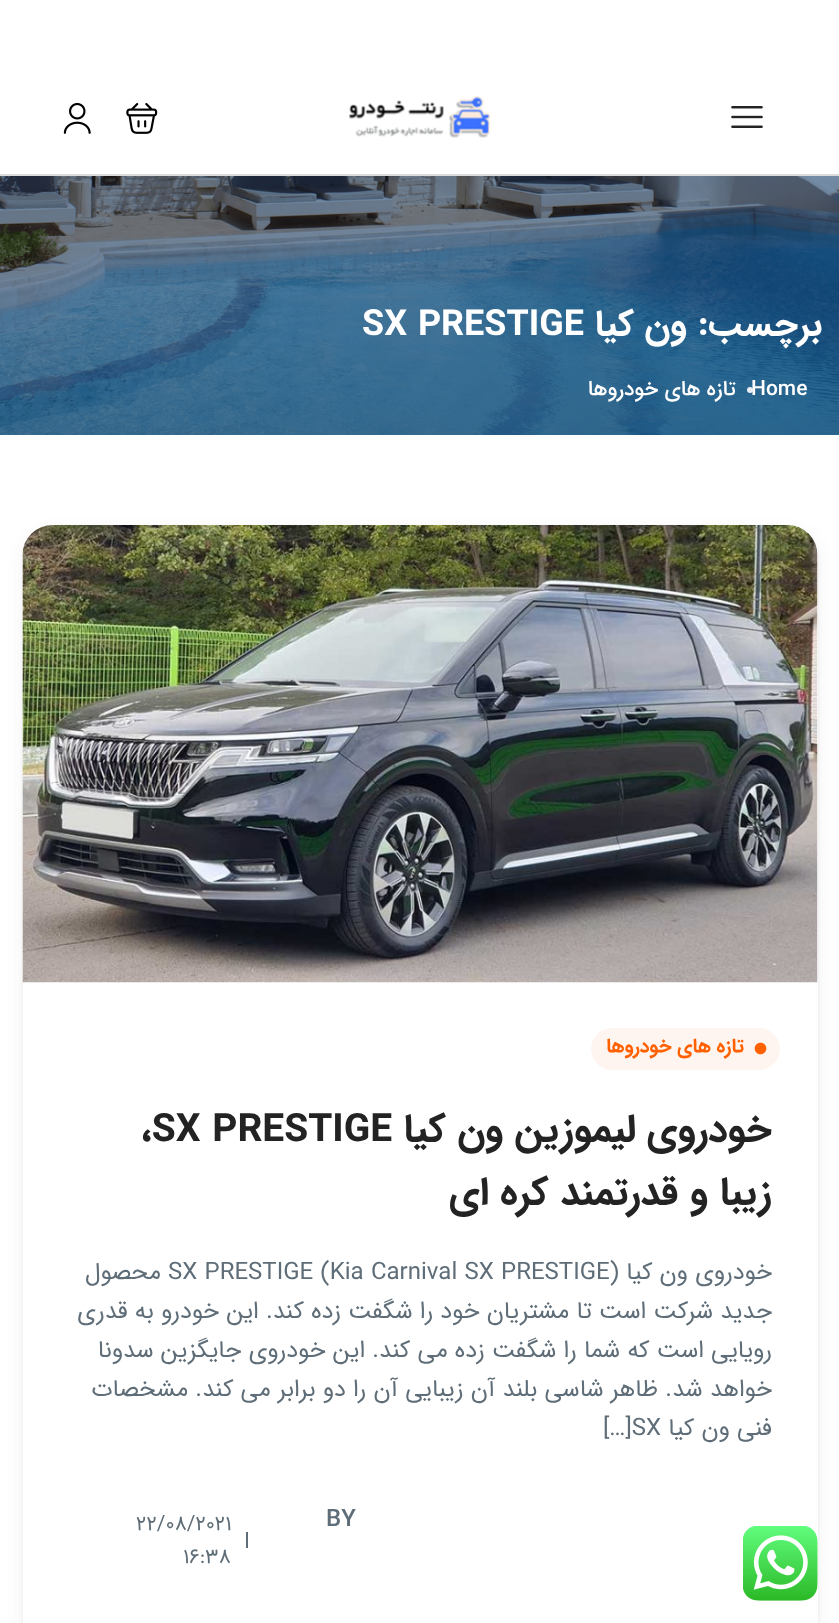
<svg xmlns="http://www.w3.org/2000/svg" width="839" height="1623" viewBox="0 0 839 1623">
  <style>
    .t1 { font: bold 36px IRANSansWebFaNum; direction: rtl; fill: #fff; }
    .t2 { font: bold 36px IRANSansWebFaNum; fill: #fff; }
    .t3 { font: 500 21px IRANSansWebFaNum; fill: #fff; }
    .t4 { font: 500 21px IRANSansWebFaNum; direction: rtl; fill: #fff; }
    .t5 { font: bold 19.5px IRANSansWebFaNum; direction: rtl; fill: #ff6000; }
    .t6 { font: bold 39px IRANSansWebFaNum; direction: rtl; fill: #232323; }
    .t7 { font: bold 39px IRANSansWebFaNum; fill: #232323; }
    .t8 { font: 24px IRANSansWebFaNum; direction: rtl; fill: #5e6d77; }
    .t9 { font: 24px IRANSansWebFaNum; fill: #5e6d77; }
    .t10 { font: 500 24px IRANSansWebFaNum; fill: #5e6d77; }
    .t11 { font: 21px IRANSansWebFaNum; fill: #5e6d77; }
  </style>
  <rect width="100%" height="100%" fill="#fff"/>
  <rect x="0" y="174" width="839" height="2" fill="#dbdbdb"/>
  <image x="731" y="106" width="32" height="22" href="images/1.png"/>
  <image x="349" y="95" width="142" height="43" href="images/2.png"/>
  <image x="126" y="103" width="32" height="31" href="images/3.png"/>
  <image x="63" y="102" width="28" height="32" href="images/4.png"/>
  <image x="0" y="176" width="839" height="259" href="images/5.png"/>
  <text x="822" y="335" class="t1">برچسب:</text>
  <text x="687" y="335" class="t1">ون کیا</text>
  <text x="362" y="335" class="t2">SX PRESTIGE</text>
  <text x="751" y="395" class="t3">Home</text>
  <circle cx="750" cy="390" r="3" fill="#eaeef3"/>
  <text x="736" y="395" class="t4">تازه های خودروها</text>
  <rect x="23" y="531" width="795" height="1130" rx="30" fill="#0000000d" filter="blur(9px)"/>
  <rect x="23" y="527" width="795" height="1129" rx="30" fill="#00000014" filter="blur(1.5px)"/>
  <rect x="23" y="525" width="795" height="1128" rx="30" fill="#fff"/>
  <image x="22" y="525" width="796" height="458" href="images/6.png"/>
  <rect x="591" y="1028" width="189" height="42" rx="21" fill="#fff5f0"/>
  <image x="754" y="1042" width="13" height="13" href="images/7.png"/>
  <text x="744" y="1052" class="t5">تازه های خودروها</text>
  <text x="772" y="1141" class="t6">خودروی لیموزین ون کیا</text>
  <text x="141" y="1141" class="t7">،SX PRESTIGE</text>
  <text x="772" y="1204" class="t6">زیبا و قدرتمند کره ای</text>
  <text x="772" y="1279" class="t8">خودروی ون کیا</text>
  <text x="168" y="1279" class="t9">SX PRESTIGE (Kia Carnival SX PRESTIGE)</text>
  <text x="161" y="1279" class="t8">محصول</text>
  <text x="772" y="1318" class="t8">جدید شرکت است تا مشتریان خود را شگفت زده کند. این خودرو به قدری</text>
  <text x="772" y="1357" class="t8">رویایی است که شما را شگفت زده می کند. این خودروی جایگزین سدونا</text>
  <text x="772" y="1396" class="t8">خواهد شد. ظاهر شاسی بلند آن زیبایی آن را دو برابر می کند. مشخصات</text>
  <text x="772" y="1435" class="t8">فنی ون کیا</text>
  <text x="603" y="1435" class="t9">[…]SX</text>
  <text x="326" y="1526" class="t10">BY</text>
  <rect x="246" y="1532" width="2" height="16" fill="#5e6d77"/>
  <text x="136" y="1530" class="t11">22/08/2021</text>
  <text x="183" y="1563" class="t11">16:38</text>
  <image x="743" y="1526" width="75" height="75" href="images/8.png"/>
</svg>
